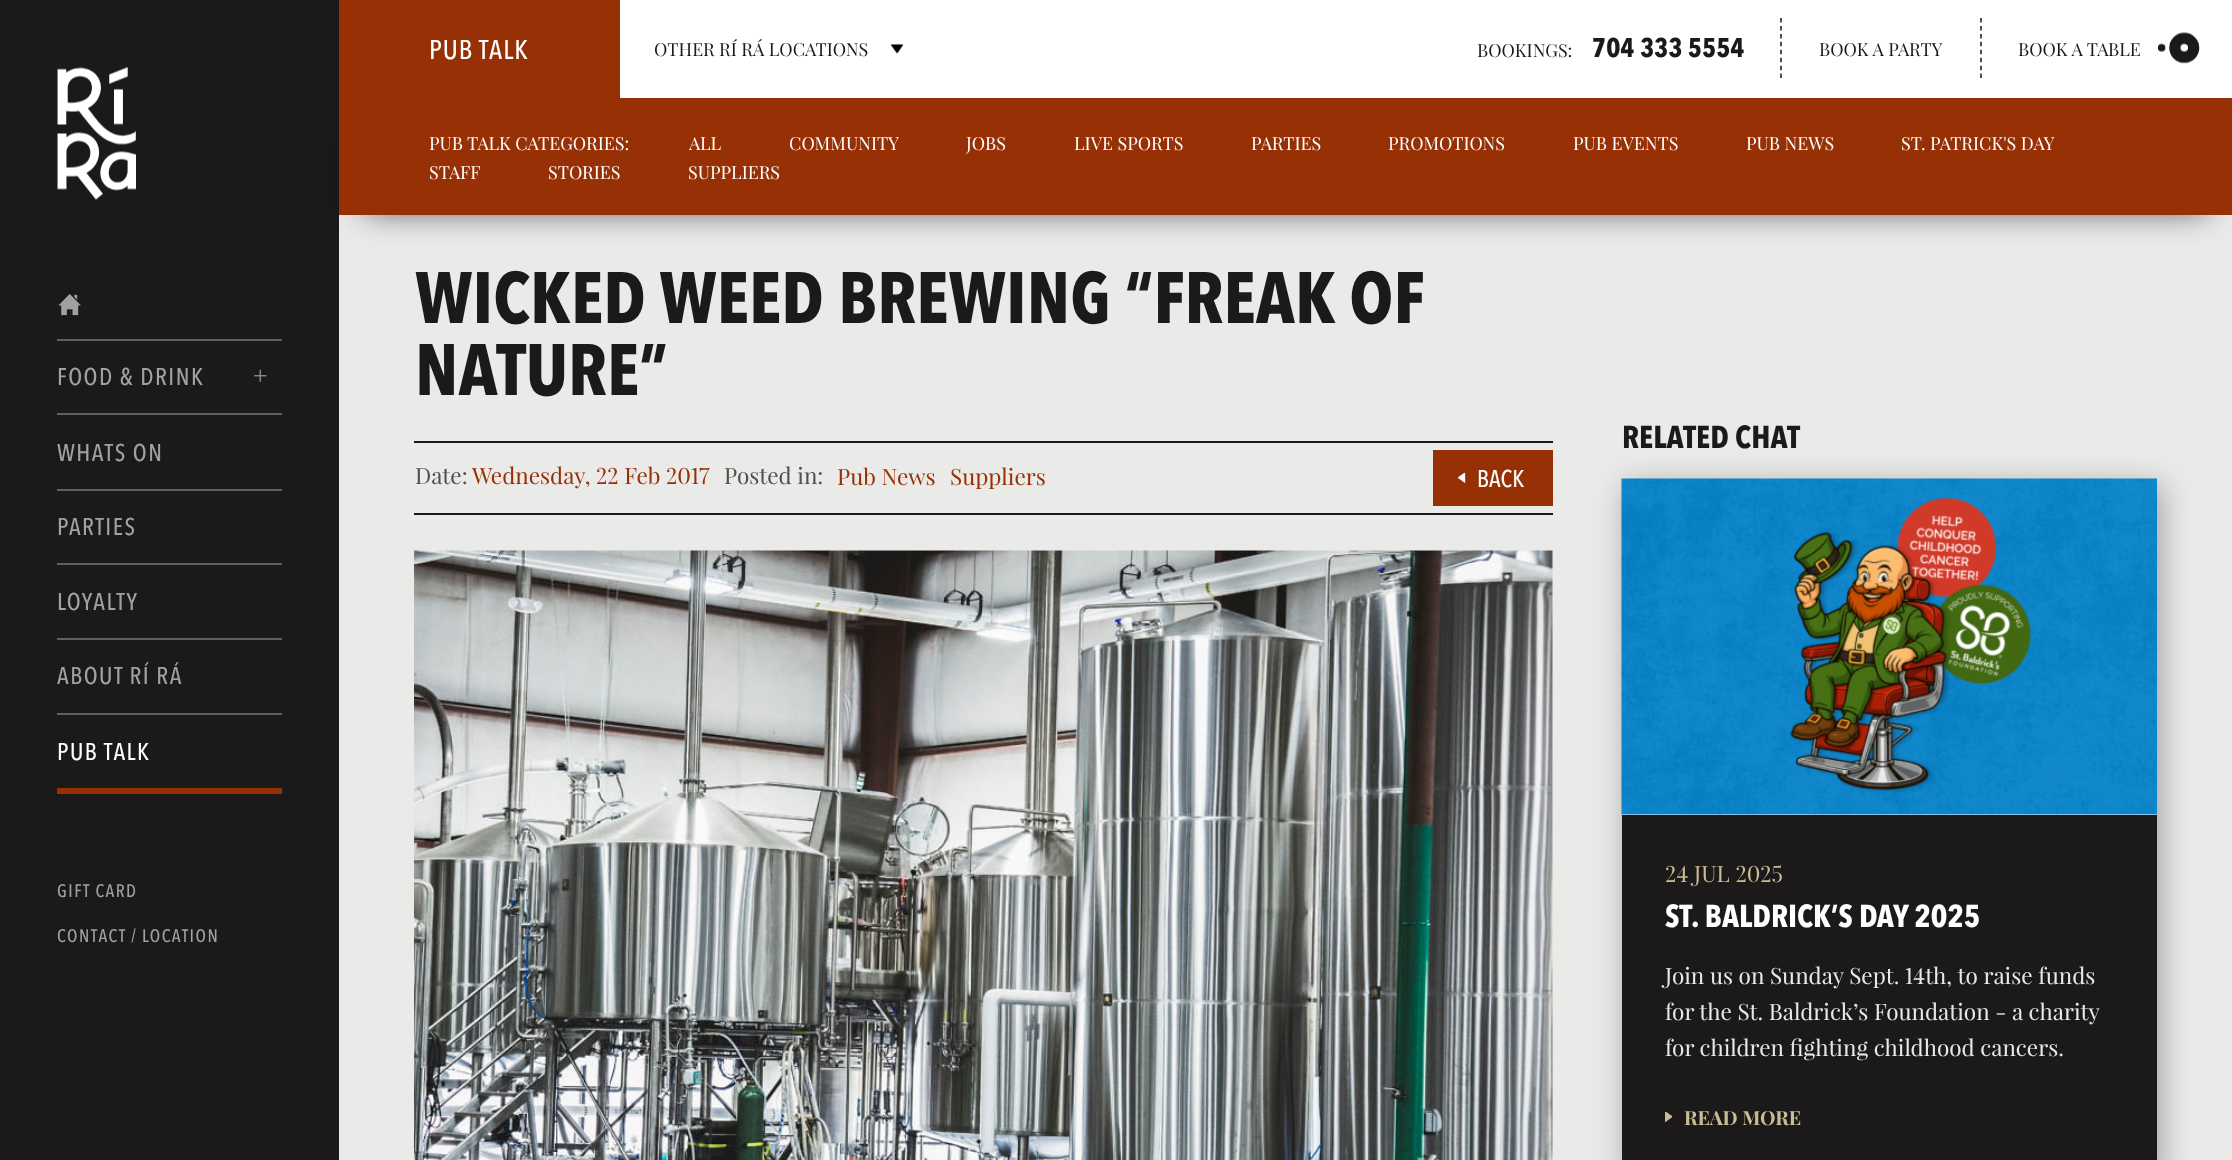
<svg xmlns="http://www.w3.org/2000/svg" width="2232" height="1160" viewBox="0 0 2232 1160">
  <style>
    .t1 { font: 500 27px 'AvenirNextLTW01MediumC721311'; letter-spacing: 1px; fill: #fff; }
    .t2 { font: 18px Playfair Display; fill: #1c191b; }
    .t3 { font: bold 27px 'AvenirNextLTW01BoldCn'; fill: #1c191b; }
    .t4 { font: 500 24px 'AvenirNextLTW01MediumC721311'; letter-spacing: 1.5px; fill: #a2a1a1; }
    .t5 { font: 500 24px 'AvenirNextLTW01MediumC721311'; letter-spacing: 1.5px; fill: #fff; }
    .t6 { font: 500 18px 'AvenirNextLTW01MediumC721311'; letter-spacing: 1.5px; fill: #a2a1a1; }
    .t7 { font: 18px 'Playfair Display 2'; fill: #fff; }
    .t8 { font: bold 72px 'AvenirNextLTW01BoldCn'; fill: #1c191b; }
    .t9 { font: 22.5px Playfair Display; fill: #514e4d; }
    .t10 { font: 22.5px Playfair Display; fill: #973105; }
    .t11 { font: 22.5px 'Playfair Display 2'; fill: #973105; }
    .t12 { font: 500 24px 'AvenirNextLTW01MediumC721311'; fill: #fff; }
    .t13 { font: bold 31.5px 'AvenirNextLTW01BoldCn'; fill: #1c191b; }
    .t14 { font: 22.5px Playfair Display; fill: #cabd91; }
    .t15 { font: bold 31.5px 'AvenirNextLTW01BoldCn'; fill: #fff; }
    .t16 { font: 22.5px Playfair Display; fill: #e8e8e8; }
    .t17 { font: bold 19.5px Playfair Display; fill: #cabd91; }
  </style>
  <rect width="100%" height="100%" fill="#fff"/>
  <rect x="0" y="0" width="339" height="1160" fill="#1c191b"/>
  <rect x="339" y="215" width="1893" height="945" fill="#eaeae8"/>
  <rect x="365" y="143" width="1842" height="66" fill="#000000bf" filter="blur(16.5px)"/>
  <rect x="339" y="0" width="281" height="98" fill="#973105"/>
  <text x="429" y="59" class="t1">PUB TALK</text>
  <text x="654" y="56" class="t2">OTHER RÍ RÁ LOCATIONS</text>
  <image x="891" y="43" width="12" height="11" href="images/1.png"/>
  <text x="1477" y="57" class="t2">BOOKINGS:</text>
  <text x="1592" y="57" class="t3">704 333 5554</text>
  <path d="M1781 18V78" fill="none" stroke="#1c191b" stroke-width="1.5" stroke-dasharray="4.5 3.44"/>
  <text x="1819" y="56" class="t2">BOOK A PARTY</text>
  <path d="M1981 18V78" fill="none" stroke="#1c191b" stroke-width="1.5" stroke-dasharray="4.5 3.44"/>
  <text x="2018" y="56" class="t2">BOOK A TABLE</text>
  <image x="2157" y="32" width="43" height="32" href="images/2.png"/>
  <image x="57" y="66" width="79" height="134" href="images/3.png"/>
  <image x="58" y="294" width="23" height="22" href="images/4.png"/>
  <rect x="57" y="339" width="225" height="2" fill="#615e60"/>
  <text x="57" y="385" class="t4">FOOD &amp; DRINK</text>
  <image x="254" y="369" width="13" height="13" href="images/5.png"/>
  <rect x="57" y="413" width="225" height="2" fill="#615e60"/>
  <text x="57" y="461" class="t4">WHATS ON</text>
  <rect x="57" y="489" width="225" height="2" fill="#615e60"/>
  <text x="57" y="535" class="t4">PARTIES</text>
  <rect x="57" y="563" width="225" height="2" fill="#615e60"/>
  <text x="57" y="610" class="t4">LOYALTY</text>
  <rect x="57" y="638" width="225" height="2" fill="#615e60"/>
  <text x="57" y="684" class="t4">ABOUT RÍ RÁ</text>
  <rect x="57" y="713" width="225" height="2" fill="#615e60"/>
  <rect x="57" y="788" width="225" height="6" fill="#973105"/>
  <text x="57" y="760" class="t5">PUB TALK</text>
  <text x="57" y="897" class="t6">GIFT CARD</text>
  <text x="57" y="942" class="t6">CONTACT / LOCATION</text>
  <rect x="339" y="98" width="1893" height="117" fill="#973105"/>
  <text x="429" y="150" class="t7">PUB TALK CATEGORIES:</text>
  <text x="689" y="150" class="t7">ALL</text>
  <text x="789" y="150" class="t7">COMMUNITY</text>
  <text x="966" y="150" class="t7">JOBS</text>
  <text x="1074" y="150" class="t7">LIVE SPORTS</text>
  <text x="1251" y="150" class="t7">PARTIES</text>
  <text x="1388" y="150" class="t7">PROMOTIONS</text>
  <text x="1573" y="150" class="t7">PUB EVENTS</text>
  <text x="1746" y="150" class="t7">PUB NEWS</text>
  <text x="1901" y="150" class="t7">ST. PATRICK'S DAY</text>
  <text x="429" y="179" class="t7">STAFF</text>
  <text x="548" y="179" class="t7">STORIES</text>
  <text x="688" y="179" class="t7">SUPPLIERS</text>
  <text x="415" y="323" class="t8">WICKED WEED BREWING “FREAK OF</text>
  <text x="415" y="395" class="t8">NATURE”</text>
  <rect x="414" y="441" width="1139" height="2" fill="#1c191b"/>
  <rect x="414" y="513" width="1139" height="2" fill="#1c191b"/>
  <text x="415" y="484" class="t9">Date:</text>
  <text x="472" y="484" class="t10">Wednesday, 22 Feb 2017</text>
  <text x="724" y="484" class="t9">Posted in:</text>
  <text x="837" y="485" class="t11">Pub News</text>
  <text x="950" y="485" class="t11">Suppliers</text>
  <rect x="1433" y="450" width="120" height="56" fill="#973105"/>
  <image x="1458" y="472" width="8" height="11" href="images/6.png"/>
  <text x="1477" y="487" class="t12">BACK</text>
  <image x="414" y="550" width="1139" height="610" href="images/7.png"/>
  <rect x="1626" y="485" width="536" height="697" fill="#0000004d" filter="blur(15px)"/>
  <text x="1622" y="448" class="t13">RELATED CHAT</text>
  <rect x="1622" y="815" width="535" height="345" fill="#1c191b"/>
  <rect x="1622" y="814" width="535" height="1" fill="#fff"/>
  <image x="1621" y="478" width="536" height="337" href="images/8.png"/>
  <text x="1665" y="882" class="t14">24 JUL 2025</text>
  <text x="1665" y="927" class="t15">ST. BALDRICK’S DAY 2025</text>
  <text x="1665" y="984" class="t16">Join us on Sunday Sept. 14th, to raise funds</text>
  <text x="1665" y="1020" class="t16">for the St. Baldrick’s Foundation - a charity</text>
  <text x="1665" y="1056" class="t16">for children fighting childhood cancers.</text>
  <image x="1665" y="1111" width="8" height="11" href="images/9.png"/>
  <text x="1684" y="1125" class="t17">READ MORE</text>
</svg>
